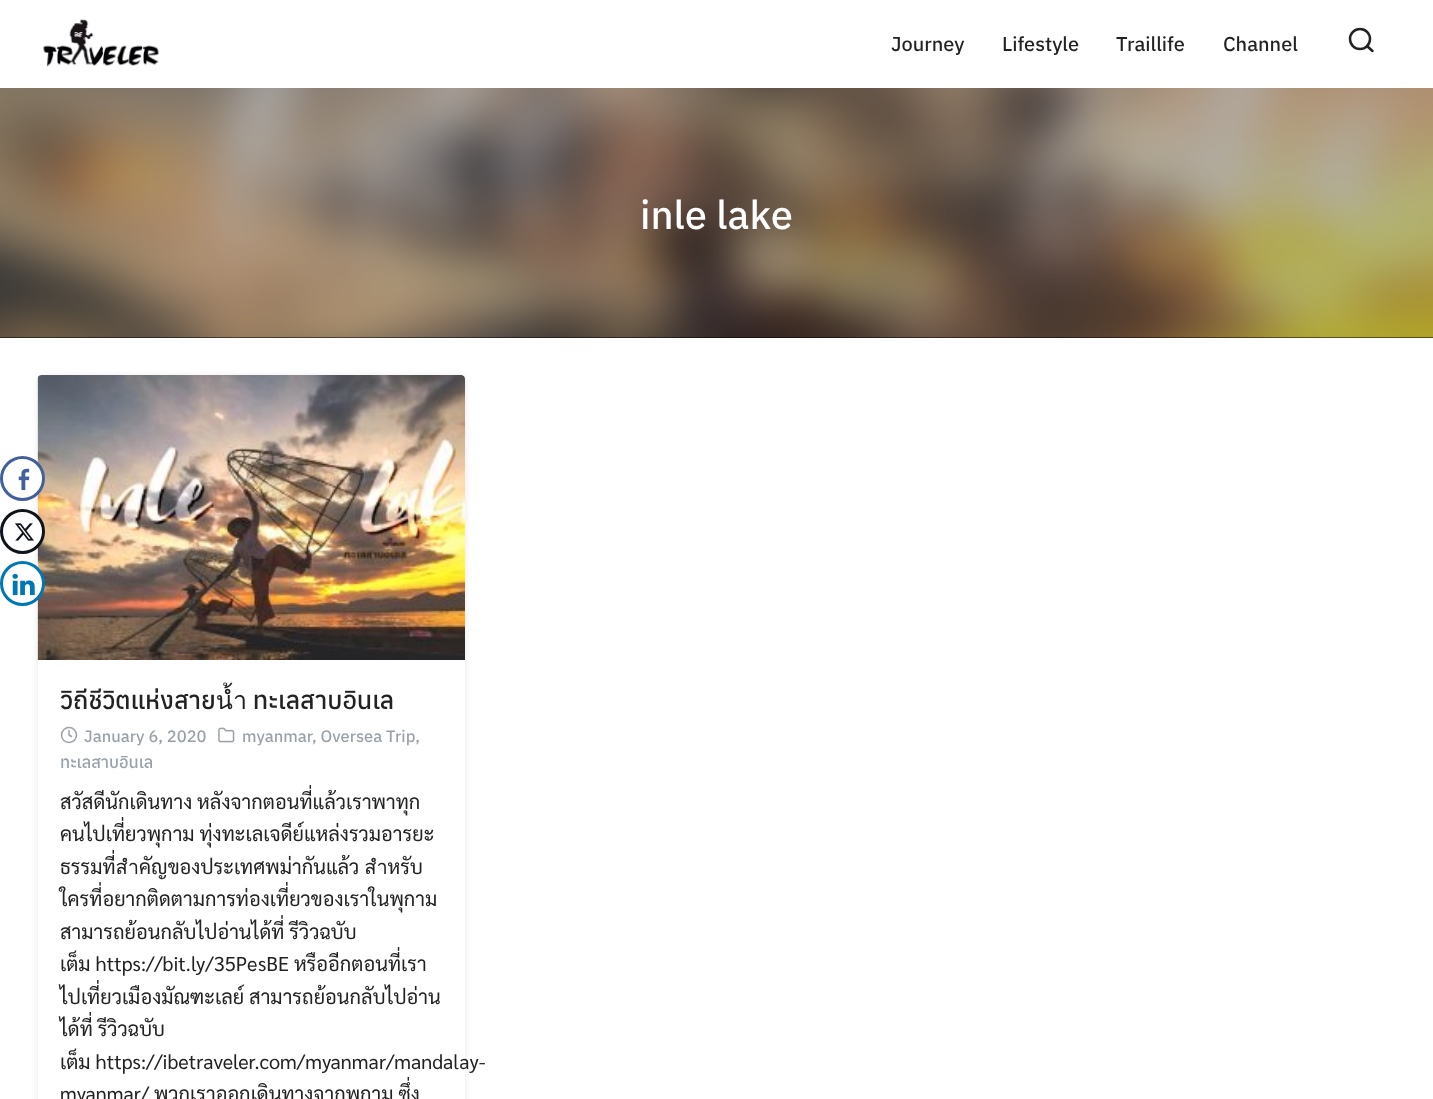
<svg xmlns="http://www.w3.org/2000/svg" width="1433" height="1099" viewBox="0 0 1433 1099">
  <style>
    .t1 { font: 500 20px Anuphan; fill: #222; }
    .t2 { font: 500 40px Anuphan; fill: #fff; }
    .t3 { font: 500 25px Anuphan; fill: #222; }
    .t4 { font: 500 16.5px Anuphan; fill: #98a1a9; }
    .t5 { font: 20px Sarabun; fill: #222; }
  </style>
  <defs>
    <clipPath id="clip1"><path d="M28 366H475V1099H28ZM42 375H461C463 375 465 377 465 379V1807C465 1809 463 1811 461 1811H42C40 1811 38 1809 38 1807V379C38 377 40 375 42 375Z" clip-rule="evenodd"/></clipPath>
  </defs>
  <rect width="100%" height="100%" fill="#fff"/>
  <g clip-path="url(#clip1)">
    <rect x="38" y="376" width="427" height="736" rx="4" fill="#0000001a" filter="blur(3px)"/>
  </g>
  <image x="37" y="375" width="428" height="285" href="images/6.png"/>
  <circle cx="22.5" cy="478.5" r="21" fill="#fff" stroke="#43609c" stroke-width="3"/>
  <image x="18" y="468" width="12" height="23" href="images/1.png"/>
  <circle cx="22.5" cy="531.5" r="21" fill="#fff" stroke="#0f1419" stroke-width="3"/>
  <image x="15" y="523" width="19" height="18" href="images/2.png"/>
  <circle cx="22.5" cy="583.5" r="21" fill="#fff" stroke="#0077b5" stroke-width="3"/>
  <image x="12" y="573" width="23" height="23" href="images/3.png"/>
  <image x="43" y="19" width="116" height="48" href="images/4.png"/>
  <text x="891" y="51" class="t1">Journey</text>
  <text x="1002" y="51" class="t1">Lifestyle</text>
  <text x="1116" y="51" class="t1">Traillife</text>
  <text x="1223" y="51" class="t1">Channel</text>
  <circle cx="1360" cy="39" r="10" fill="none" stroke="#222" stroke-width="2.5"/>
  <path d="M1372.5 51L1367 46" fill="none" stroke="#222" stroke-width="2.5" stroke-linecap="round" stroke-linejoin="round"/>
  <rect x="0" y="88" width="1433" height="250" fill="#000"/>
  <image x="0" y="88" width="1433" height="250" href="images/5.png"/>
  <text x="640" y="229" class="t2">inle lake</text>
  <text x="60" y="709" class="t3">วิถีชีวิตแห่งสายน้ำ ทะเลสาบอินเล</text>
  <text x="84" y="742" class="t4">January 6, 2020</text>
  <circle cx="69" cy="735" r="7.5" fill="none" stroke="#98a1a9" stroke-width="1.5"/>
  <path d="M69 730.5V735L71.5 736.5" fill="none" stroke="#98a1a9" stroke-width="1.5" stroke-linecap="round" stroke-linejoin="round"/>
  <image x="218" y="727" width="17" height="16" href="images/7.png"/>
  <text x="242" y="742" class="t4">myanmar</text>
  <text x="312" y="742" class="t4">, Oversea Trip,</text>
  <text x="60" y="768" class="t4">ทะเลสาบอินเล</text>
  <text x="60" y="809" class="t5">สวัสดีนักเดินทาง หลังจากตอนที่แล้วเราพาทุก</text>
  <text x="60" y="841" class="t5">คนไปเที่ยวพุกาม ทุ่งทะเลเจดีย์แหล่งรวมอารยะ</text>
  <text x="60" y="874" class="t5">ธรรมที่สำคัญของประเทศพม่ากันแล้ว สำหรับ</text>
  <text x="60" y="906" class="t5">ใครที่อยากติดตามการท่องเที่ยวของเราในพุกาม</text>
  <text x="60" y="939" class="t5">สามารถย้อนกลับไปอ่านได้ที่ รีวิวฉบับ</text>
  <text x="60" y="971" class="t5">เต็ม https://bit.ly/35PesBE หรืออีกตอนที่เรา</text>
  <text x="60" y="1004" class="t5">ไปเที่ยวเมืองมัณฑะเลย์ สามารถย้อนกลับไปอ่าน</text>
  <text x="60" y="1036" class="t5">ได้ที่ รีวิวฉบับ</text>
  <text x="60" y="1069" class="t5">เต็ม https://ibetraveler.com/myanmar/mandalay-</text>
  <text x="60" y="1101" class="t5">myanmar/ พวกเราออกเดินทางจากพุกาม ซึ่ง</text>
</svg>
